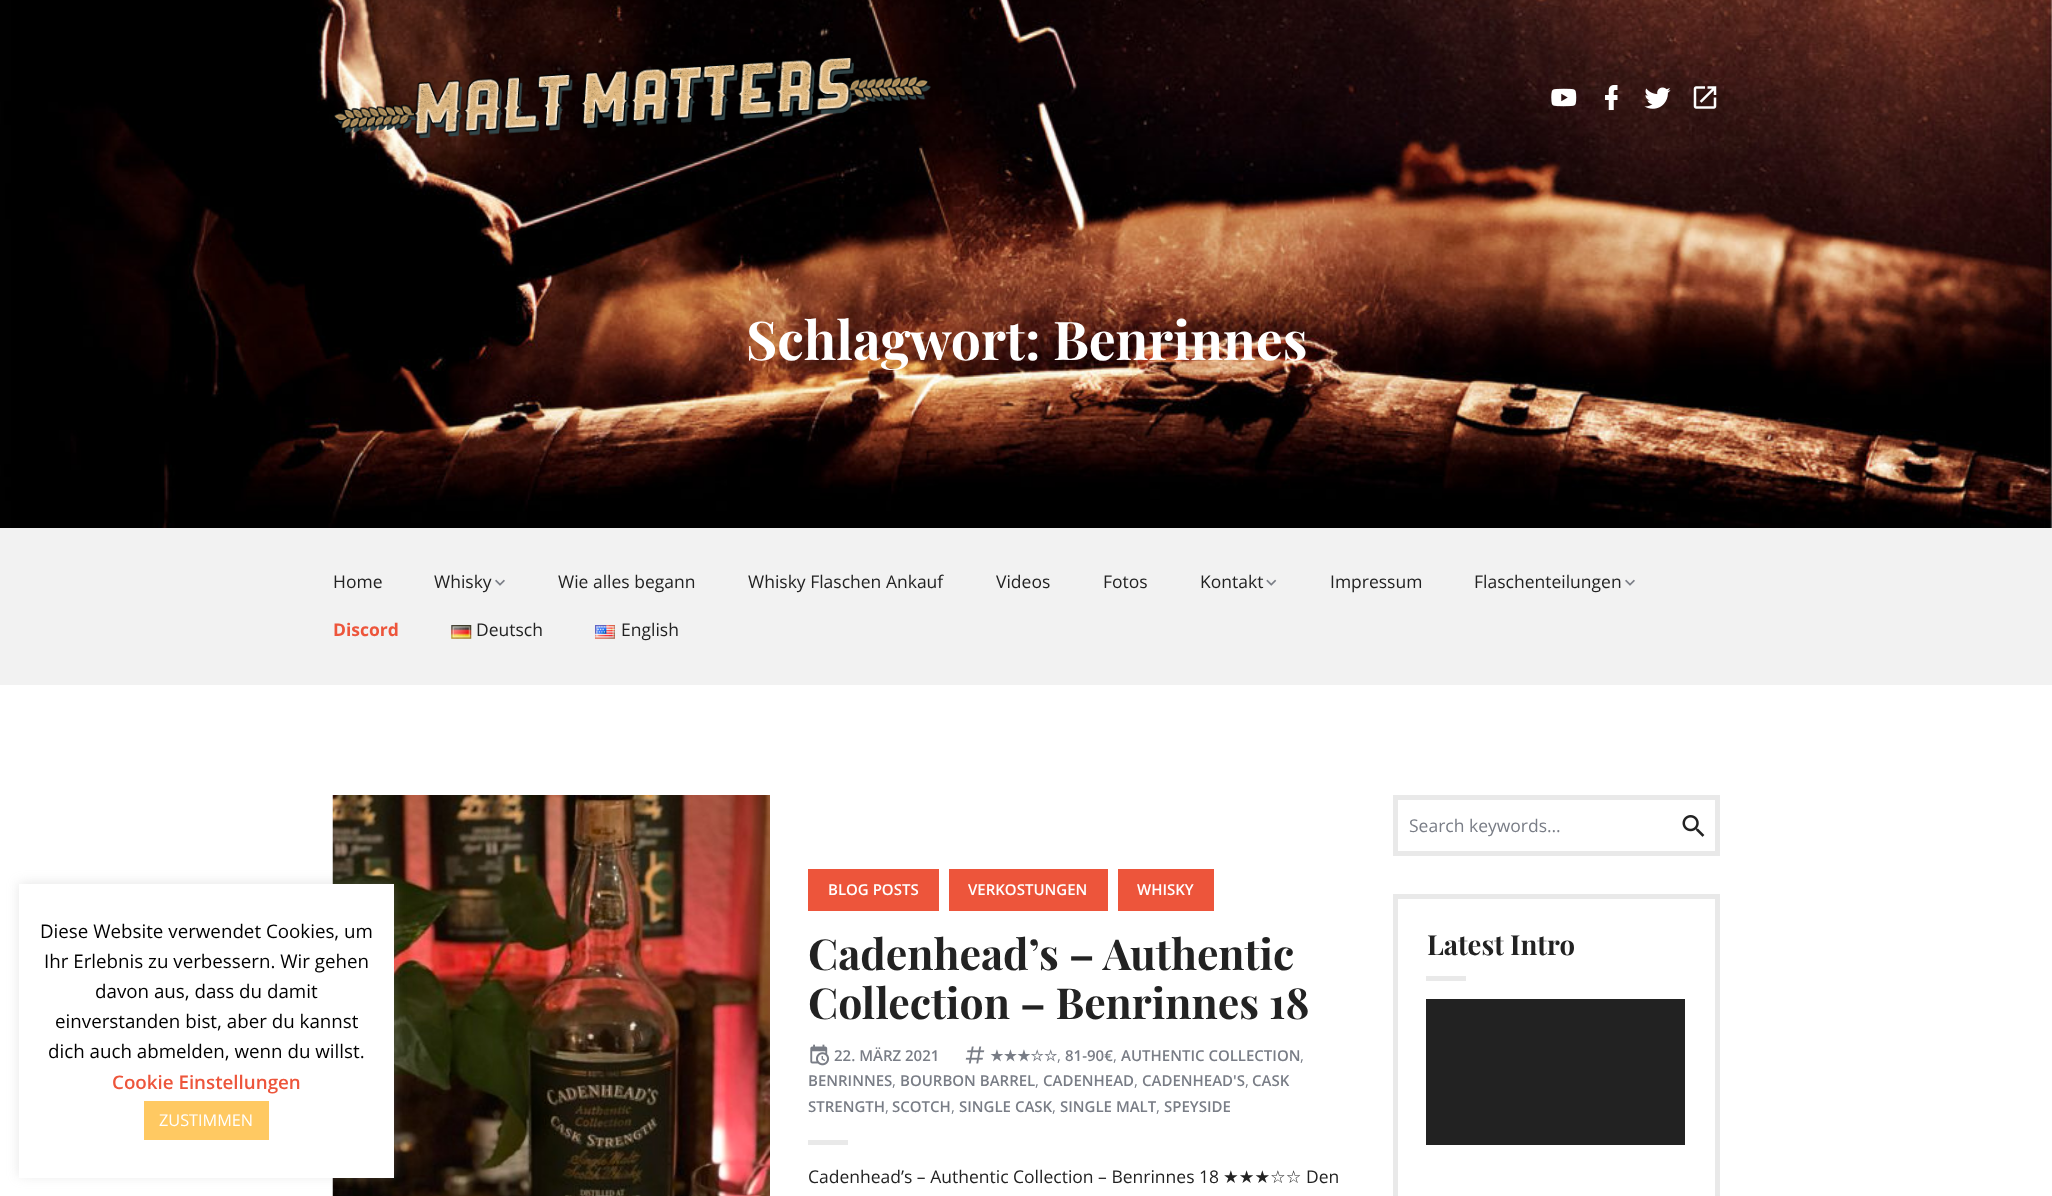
<svg xmlns="http://www.w3.org/2000/svg" width="2052" height="1196" viewBox="0 0 2052 1196">
  <style>
    .t1 { font: bold 53.5px Playfair Display; fill: #fff; }
    .t2 { font: 17.5px Open Sans; fill: #222; }
    .t3 { font: bold 17.5px Open Sans; fill: #ed553b; }
    .t4 { font: 18.75px Open Sans; fill: #000; }
    .t5 { font: 600 18.75px Open Sans; fill: #ed553b; }
    .t6 { font: 16.25px Open Sans; fill: #fff; }
    .t7 { font: 600 15px Open Sans; fill: #fff; }
    .t8 { font: bold 42.75px Playfair Display; fill: #222; }
    .t9 { font: 600 15px Open Sans; fill: #797d86; }
    .t10 { font: bold 15px DejaVu Sans; fill: #797d86; }
    .t11 { font: 15px Open Sans; fill: #797d86; }
    .t12 { font: 17.5px DejaVu Sans; fill: #222; }
    .t13 { font: 17.5px Open Sans; fill: #797d86; }
    .t14 { font: bold 27.5px Playfair Display; fill: #222; }
  </style>
  <rect width="100%" height="100%" fill="#fff"/>
  <image x="0" y="0" width="2052" height="528" href="images/1.png"/>
  <image x="334" y="57" width="597" height="82" href="images/2.png"/>
  <image x="1551" y="88" width="26" height="19" href="images/3.png"/>
  <image x="1605" y="85" width="13" height="25" href="images/4.png"/>
  <image x="1644" y="87" width="27" height="22" href="images/5.png"/>
  <image x="1693" y="86" width="24" height="23" href="images/6.png"/>
  <text x="746" y="360" class="t1">Schlagwort: Benrinnes</text>
  <rect x="0" y="528" width="2052" height="157" fill="#f2f2f2"/>
  <text x="333" y="588" class="t2">Home</text>
  <text x="434" y="588" class="t2">Whisky</text>
  <image x="495" y="579" width="10" height="7" href="images/7.png"/>
  <text x="558" y="588" class="t2">Wie alles begann</text>
  <text x="748" y="588" class="t2">Whisky Flaschen Ankauf</text>
  <text x="996" y="588" class="t2">Videos</text>
  <text x="1103" y="588" class="t2">Fotos</text>
  <text x="1200" y="588" class="t2">Kontakt</text>
  <image x="1266" y="579" width="11" height="7" href="images/8.png"/>
  <text x="1330" y="588" class="t2">Impressum</text>
  <text x="1474" y="588" class="t2">Flaschenteilungen</text>
  <image x="1625" y="579" width="10" height="7" href="images/7.png"/>
  <text x="333" y="636" class="t3">Discord</text>
  <image x="451" y="625" width="21" height="14" href="images/9.png"/>
  <text x="476" y="636" class="t2">Deutsch</text>
  <image x="595" y="625" width="20" height="14" href="images/10.png"/>
  <text x="621" y="636" class="t2">English</text>
  <image x="332" y="795" width="438" height="401" href="images/11.png"/>
  <rect x="19" y="883" width="375" height="293" fill="#acabab4d" filter="blur(6px)"/>
  <rect x="19" y="884" width="375" height="294" fill="#fff"/>
  <text x="40" y="938" class="t4">Diese Website verwendet Cookies, um</text>
  <text x="44" y="968" class="t4">Ihr Erlebnis zu verbessern. Wir gehen</text>
  <text x="95" y="998" class="t4">davon aus, dass du damit</text>
  <text x="55" y="1028" class="t4">einverstanden bist, aber du kannst</text>
  <text x="48" y="1058" class="t4">dich auch abmelden, wenn du willst.</text>
  <text x="112" y="1089" class="t5">Cookie Einstellungen</text>
  <rect x="144" y="1101" width="125" height="39" fill="#ffc962"/>
  <text x="159" y="1126" class="t6">ZUSTIMMEN</text>
  <rect x="808" y="869" width="131" height="42" fill="#ed553b"/>
  <text x="828" y="895" class="t7">BLOG POSTS</text>
  <rect x="949" y="869" width="159" height="42" fill="#ed553b"/>
  <text x="968" y="895" class="t7">VERKOSTUNGEN</text>
  <rect x="1118" y="869" width="96" height="42" fill="#ed553b"/>
  <text x="1137" y="895" class="t7">WHISKY</text>
  <text x="808" y="970" class="t8">Cadenhead’s – Authentic</text>
  <text x="808" y="1019" class="t8">Collection – Benrinnes 18</text>
  <image x="810" y="1044" width="20" height="22" href="images/12.png"/>
  <text x="834" y="1061" class="t9">22. MÄRZ 2021</text>
  <image x="965" y="1046" width="20" height="18" href="images/13.png"/>
  <text x="990" y="1061" class="t10">★★★☆☆</text>
  <text x="1057" y="1061" class="t11">,</text>
  <text x="1065" y="1061" class="t9">81-90€</text>
  <text x="1113" y="1061" class="t11">,</text>
  <text x="1121" y="1061" class="t9">AUTHENTIC COLLECTION</text>
  <text x="1300" y="1061" class="t11">,</text>
  <text x="808" y="1086" class="t9">BENRINNES</text>
  <text x="892" y="1086" class="t11">,</text>
  <text x="900" y="1086" class="t9">BOURBON BARREL</text>
  <text x="1035" y="1086" class="t11">,</text>
  <text x="1043" y="1086" class="t9">CADENHEAD</text>
  <text x="1134" y="1086" class="t11">,</text>
  <text x="1142" y="1086" class="t9">CADENHEAD'S</text>
  <text x="1245" y="1086" class="t11">,</text>
  <text x="1252" y="1086" class="t9">CASK</text>
  <text x="808" y="1112" class="t9">STRENGTH</text>
  <text x="885" y="1112" class="t11">,</text>
  <text x="892" y="1112" class="t9">SCOTCH</text>
  <text x="951" y="1112" class="t11">,</text>
  <text x="959" y="1112" class="t9">SINGLE CASK</text>
  <text x="1052" y="1112" class="t11">,</text>
  <text x="1060" y="1112" class="t9">SINGLE MALT</text>
  <text x="1156" y="1112" class="t11">,</text>
  <text x="1164" y="1112" class="t9">SPEYSIDE</text>
  <rect x="808" y="1140" width="40" height="5" fill="#e9e9e9"/>
  <text x="808" y="1183" class="t2">Cadenhead’s – Authentic Collection – Benrinnes 18</text>
  <text x="1223" y="1183" class="t12">★★★☆☆</text>
  <text x="1306" y="1183" class="t2">Den</text>
  <rect x="1395.5" y="797.5" width="322" height="56" fill="none" stroke="#e9e9e9" stroke-width="5"/>
  <text x="1409" y="832" class="t13">Search keywords…</text>
  <image x="1682" y="815" width="23" height="22" href="images/14.png"/>
  <rect x="1395.5" y="896.5" width="322" height="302" fill="none" stroke="#e9e9e9" stroke-width="5"/>
  <text x="1427" y="955" class="t14">Latest Intro</text>
  <rect x="1426" y="976" width="40" height="5" fill="#e9e9e9"/>
  <rect x="1426" y="999" width="259" height="146" fill="#222"/>
</svg>
